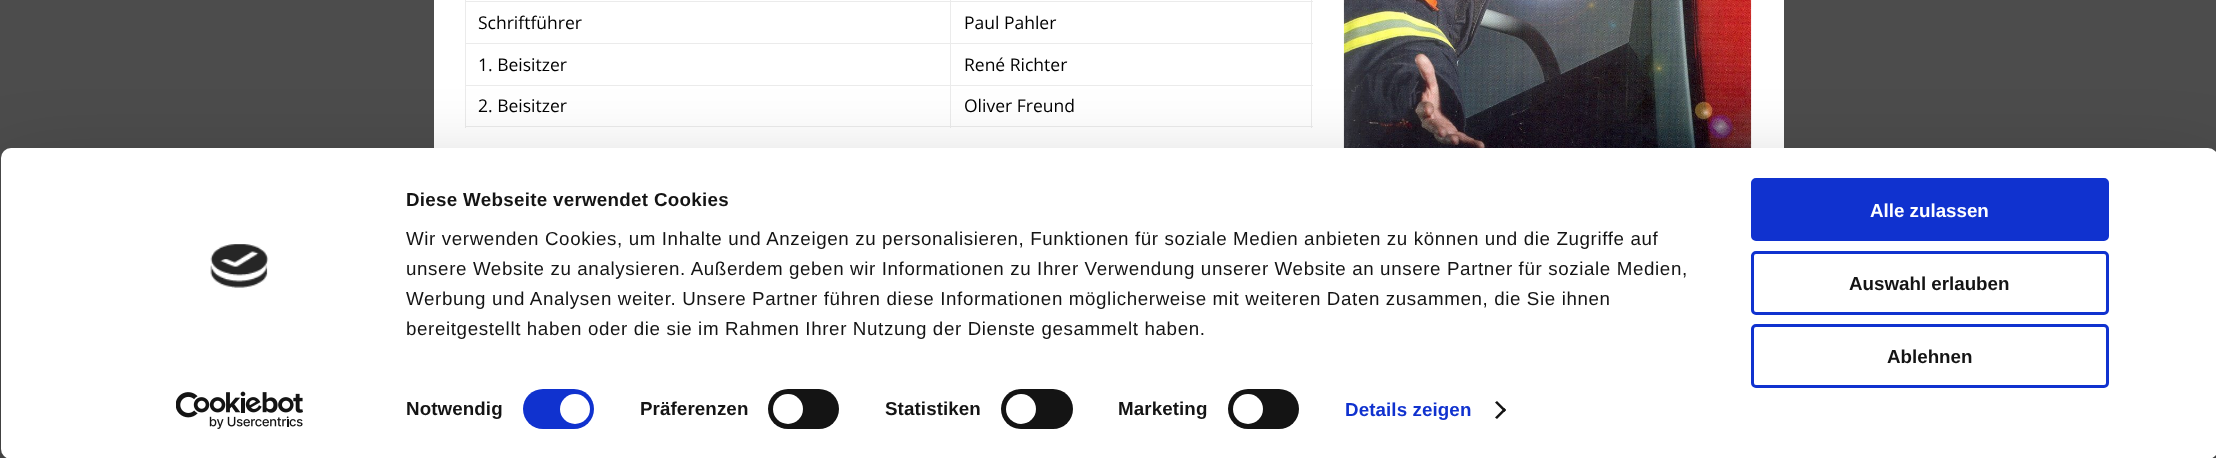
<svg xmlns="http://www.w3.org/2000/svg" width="2216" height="458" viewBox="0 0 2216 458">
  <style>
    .t1 { font: 17.5px Open Sans; fill: #000; }
    .t2 { font: bold 18.75px Liberation Sans; letter-spacing: 0.3px; fill: #141414; }
    .t3 { font: 18.75px Liberation Sans; letter-spacing: 0.62px; fill: #141414; }
    .t4 { font: bold 18.75px Liberation Sans; letter-spacing: 0.1px; fill: #141414; }
    .t5 { font: bold 18.75px Liberation Sans; letter-spacing: 0.1px; fill: #1032cf; }
    .t6 { font: bold 18.75px Liberation Sans; fill: #fff; }
    .t7 { font: bold 18.75px Liberation Sans; fill: #141414; }
  </style>
  <rect width="100%" height="100%" fill="#4c4c4c"/>
  <rect x="434" y="0" width="1350" height="148" fill="#fff"/>
  <rect x="465" y="0" width="1" height="128" fill="#ebebeb"/>
  <rect x="1311" y="0" width="1" height="128" fill="#ebebeb"/>
  <rect x="950" y="126" width="363" height="1" fill="#ebebeb"/>
  <rect x="950" y="85" width="1" height="43" fill="#ebebeb"/>
  <rect x="950" y="85" width="363" height="1" fill="#ebebeb"/>
  <rect x="950" y="43" width="1" height="43" fill="#ebebeb"/>
  <rect x="950" y="43" width="363" height="1" fill="#ebebeb"/>
  <rect x="950" y="1" width="1" height="43" fill="#ebebeb"/>
  <rect x="950" y="1" width="363" height="1" fill="#ebebeb"/>
  <rect x="950" y="0" width="1" height="3" fill="#ebebeb"/>
  <rect x="465" y="1" width="486" height="1" fill="#ebebeb"/>
  <rect x="465" y="43" width="486" height="1" fill="#ebebeb"/>
  <text x="478" y="29" class="t1">Schriftführer</text>
  <text x="964" y="29" class="t1">Paul Pahler</text>
  <rect x="465" y="85" width="486" height="1" fill="#ebebeb"/>
  <text x="478" y="71" class="t1">1. Beisitzer</text>
  <text x="964" y="71" class="t1">René Richter</text>
  <rect x="465" y="126" width="486" height="1" fill="#ebebeb"/>
  <text x="478" y="112" class="t1">2. Beisitzer</text>
  <text x="964" y="112" class="t1">Oliver Freund</text>
  <image x="1343" y="0" width="409" height="148" href="images/1.png"/>
  <rect x="1" y="185" width="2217" height="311" rx="10" fill="#0000004d" filter="blur(44px)"/>
  <rect x="1" y="148" width="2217" height="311" rx="10" fill="#fff"/>
  <image x="210" y="244" width="59" height="44" href="images/2.png"/>
  <image x="176" y="391" width="127" height="38" href="images/3.png"/>
  <text x="406" y="206" class="t2">Diese Webseite verwendet Cookies</text>
  <text x="406" y="245" class="t3">Wir verwenden Cookies, um Inhalte und Anzeigen zu personalisieren, Funktionen für soziale Medien anbieten zu können und die Zugriffe auf</text>
  <text x="406" y="275" class="t3">unsere Website zu analysieren. Außerdem geben wir Informationen zu Ihrer Verwendung unserer Website an unsere Partner für soziale Medien,</text>
  <text x="406" y="305" class="t3">Werbung und Analysen weiter. Unsere Partner führen diese Informationen möglicherweise mit weiteren Daten zusammen, die Sie ihnen</text>
  <text x="406" y="335" class="t3">bereitgestellt haben oder die sie im Rahmen Ihrer Nutzung der Dienste gesammelt haben.</text>
  <text x="406" y="415" class="t4">Notwendig</text>
  <rect x="523" y="389" width="71" height="40" rx="20" fill="#1032cf"/>
  <circle cx="575" cy="409" r="15" fill="#fff"/>
  <text x="640" y="415" class="t4">Präferenzen</text>
  <rect x="768" y="389" width="71" height="40" rx="20" fill="#141414"/>
  <circle cx="788" cy="409" r="15" fill="#fff"/>
  <text x="885" y="415" class="t4">Statistiken</text>
  <rect x="1001" y="389" width="72" height="40" rx="20" fill="#141414"/>
  <circle cx="1021" cy="409" r="15" fill="#fff"/>
  <text x="1118" y="415" class="t4">Marketing</text>
  <rect x="1228" y="389" width="71" height="40" rx="20" fill="#141414"/>
  <circle cx="1248" cy="409" r="15" fill="#fff"/>
  <text x="1345" y="416" class="t5">Details zeigen</text>
  <path d="M1497 401L1506 410L1504.5 412L1495 402.5Z" fill="#141414"/>
  <path d="M1504.5 408L1506 410L1497 419L1495 417.5Z" fill="#141414"/>
  <rect x="1752.5" y="179.5" width="355" height="60" rx="3.5" fill="#1032cf" stroke="#1032cf" stroke-width="3"/>
  <text x="1870" y="217" class="t6">Alle zulassen</text>
  <rect x="1752.5" y="252.5" width="355" height="61" rx="3.5" fill="none" stroke="#1032cf" stroke-width="3"/>
  <text x="1849" y="290" class="t7">Auswahl erlauben</text>
  <rect x="1752.5" y="325.5" width="355" height="61" rx="3.5" fill="none" stroke="#1032cf" stroke-width="3"/>
  <text x="1887" y="363" class="t7">Ablehnen</text>
</svg>
